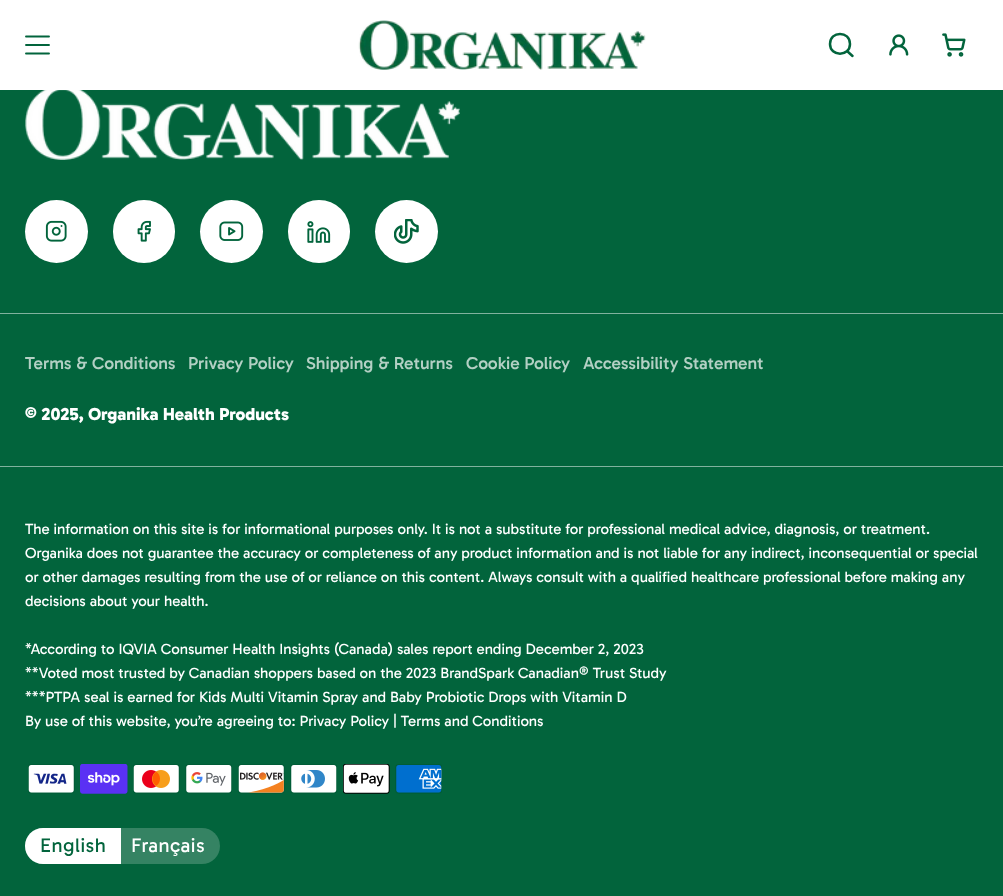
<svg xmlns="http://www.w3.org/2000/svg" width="1003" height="896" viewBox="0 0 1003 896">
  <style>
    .t1 { font: 500 17.5px Gabarito; fill: #b3d0c4; }
    .t2 { font: 800 17.5px Gabarito; fill: #fff; }
    .t3 { font: 15px Gabarito; fill: #fff; }
    .t4 { font: 20px Gabarito; letter-spacing: 0.5px; fill: #02643c; }
    .t5 { font: 20px Gabarito; letter-spacing: 0.5px; fill: #fff; }
  </style>
  <rect width="100%" height="100%" fill="#02643c"/>
  <rect x="0" y="0" width="1003" height="90" fill="#fff"/>
  <path d="M26 45H49M26 36.5H49M26 53.5H49" fill="none" stroke="#02643c" stroke-width="1.9" stroke-linecap="round" stroke-linejoin="round"/>
  <image x="358" y="20" width="288" height="50" href="images/1.png"/>
  <path d="M852.5 56L847 51M850 44C850 57 830 57 830 44C830 30.5 850 30.5 850 44Z" fill="none" stroke="#02643c" stroke-width="2.5" stroke-linecap="round" stroke-linejoin="round"/>
  <image x="889" y="34" width="20" height="22" href="images/2.png"/>
  <image x="942" y="33" width="24" height="24" href="images/3.png"/>
  <image x="25" y="90" width="435" height="70" href="images/4.png"/>
  <circle cx="56.5" cy="231.5" r="31.5" fill="#fff"/>
  <image x="45" y="220" width="22" height="22" href="images/5.png"/>
  <rect x="113" y="200" width="62" height="63" rx="31" fill="#fff"/>
  <image x="137" y="220" width="14" height="22" href="images/6.png"/>
  <circle cx="231.5" cy="231.5" r="31.5" fill="#fff"/>
  <image x="219" y="221" width="25" height="20" href="images/7.png"/>
  <rect x="288" y="200" width="62" height="63" rx="31" fill="#fff"/>
  <image x="307" y="221" width="24" height="22" href="images/8.png"/>
  <circle cx="406.5" cy="231.5" r="31.5" fill="#fff"/>
  <image x="394" y="219" width="25" height="25" href="images/9.png"/>
  <rect x="0" y="313" width="1003" height="1" fill="#81b29e"/>
  <rect x="0" y="466" width="1003" height="1" fill="#81b29e"/>
  <text x="25" y="369" class="t1">Terms &amp; Conditions</text>
  <text x="188" y="369" class="t1">Privacy Policy</text>
  <text x="306" y="369" class="t1">Shipping &amp; Returns</text>
  <text x="466" y="369" class="t1">Cookie Policy</text>
  <text x="583" y="369" class="t1">Accessibility Statement</text>
  <text x="25" y="420" class="t2">© 2025, Organika Health Products</text>
  <text x="25" y="534" class="t3">The information on this site is for informational purposes only. It is not a substitute for professional medical advice, diagnosis, or treatment.</text>
  <text x="25" y="558" class="t3">Organika does not guarantee the accuracy or completeness of any product information and is not liable for any indirect, inconsequential or special</text>
  <text x="25" y="582" class="t3">or other damages resulting from the use of or reliance on this content. Always consult with a qualified healthcare professional before making any</text>
  <text x="25" y="606" class="t3">decisions about your health.</text>
  <text x="25" y="654" class="t3">*According to IQVIA Consumer Health Insights (Canada) sales report ending December 2, 2023</text>
  <text x="25" y="678" class="t3">**Voted most trusted by Canadian shoppers based on the 2023 BrandSpark Canadian® Trust Study</text>
  <text x="25" y="702" class="t3">***PTPA seal is earned for Kids Multi Vitamin Spray and Baby Probiotic Drops with Vitamin D</text>
  <text x="25" y="726" class="t3">By use of this website, you’re agreeing to: Privacy Policy | Terms and Conditions</text>
  <image x="28" y="764" width="47" height="30" href="images/10.png"/>
  <image x="80" y="764" width="48" height="30" href="images/11.png"/>
  <image x="133" y="764" width="47" height="30" href="images/12.png"/>
  <image x="185" y="764" width="47" height="30" href="images/13.png"/>
  <image x="238" y="764" width="47" height="30" href="images/14.png"/>
  <image x="290" y="764" width="47" height="30" href="images/15.png"/>
  <image x="343" y="764" width="47" height="30" href="images/16.png"/>
  <image x="395" y="764" width="47" height="30" href="images/17.png"/>
  <rect x="25" y="828" width="195" height="36" rx="18" fill="#358363"/>
  <path d="M43 828H121V864H43C33 864 25 856 25 846C25 836 33 828 43 828Z" fill="#fff"/>
  <text x="40" y="852" class="t4">English</text>
  <text x="131" y="852" class="t5">Français</text>
</svg>
